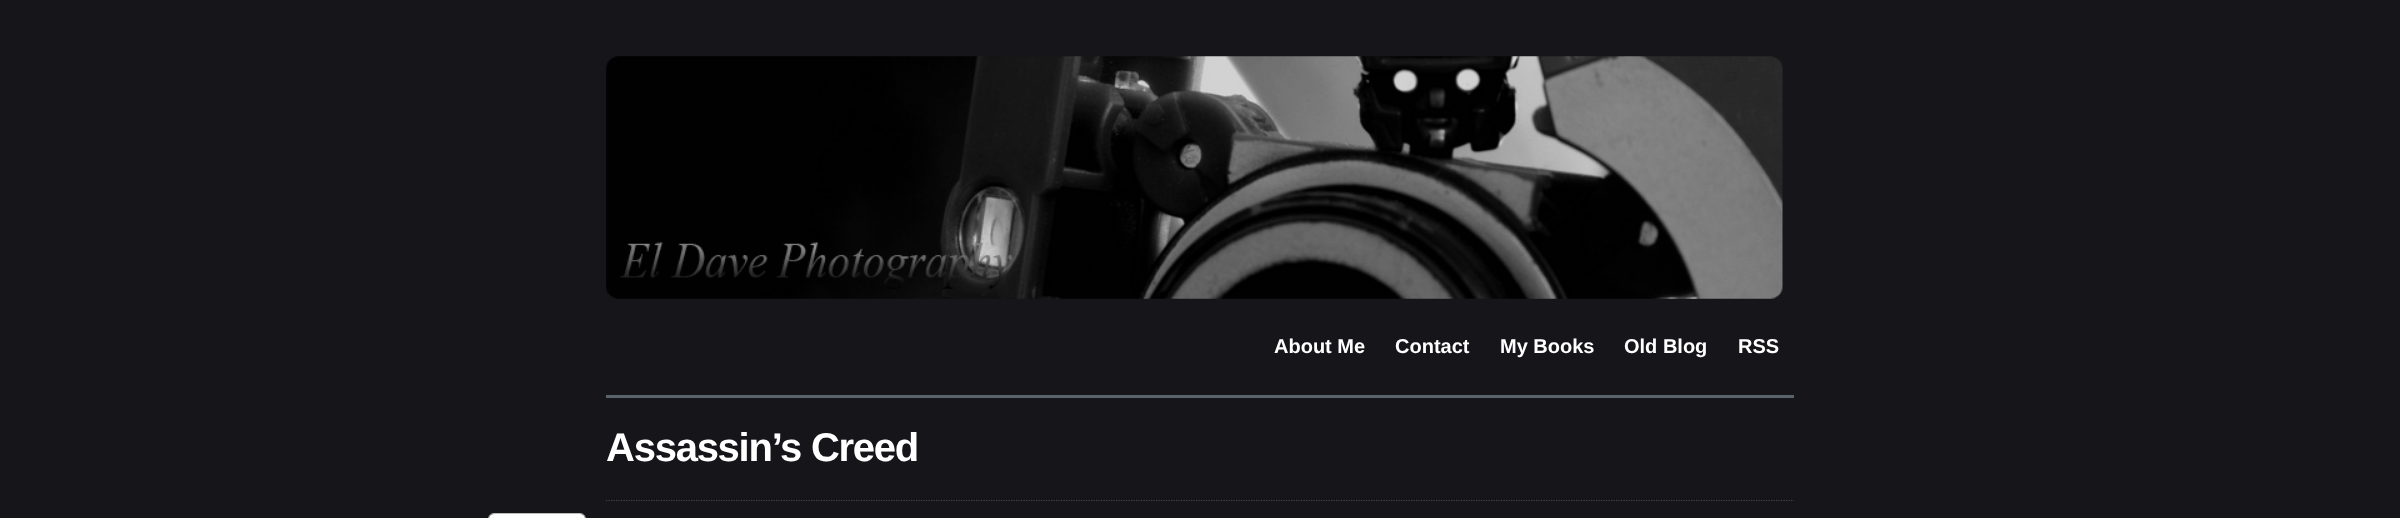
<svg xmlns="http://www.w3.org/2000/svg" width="2400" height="518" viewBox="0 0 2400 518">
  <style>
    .t1 { font: bold 20px Liberation Sans; fill: #fff; }
    .t2 { font: bold 40px Liberation Sans; letter-spacing: -1.25px; fill: #fff; }
  </style>
  <rect width="100%" height="100%" fill="#16151a"/>
  <rect x="606" y="395" width="1188" height="3" fill="#58626a"/>
  <image x="606" y="56" width="1177" height="243" href="images/1.png"/>
  <text x="1274" y="353" class="t1">About Me</text>
  <text x="1395" y="353" class="t1">Contact</text>
  <text x="1500" y="353" class="t1">My Books</text>
  <text x="1624" y="353" class="t1">Old Blog</text>
  <text x="1738" y="353" class="t1">RSS</text>
  <text x="606" y="461" class="t2">Assassin’s Creed</text>
  <path d="M606 500.5H1794" fill="none" stroke="#474747" stroke-width="1.2" stroke-dasharray="1.25 1.25"/>
  <rect x="489" y="514" width="96" height="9" rx="5" fill="#fff"/>
  <rect x="488.5" y="513.5" width="97" height="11" rx="5.5" fill="none" stroke="#bbb"/>
</svg>
